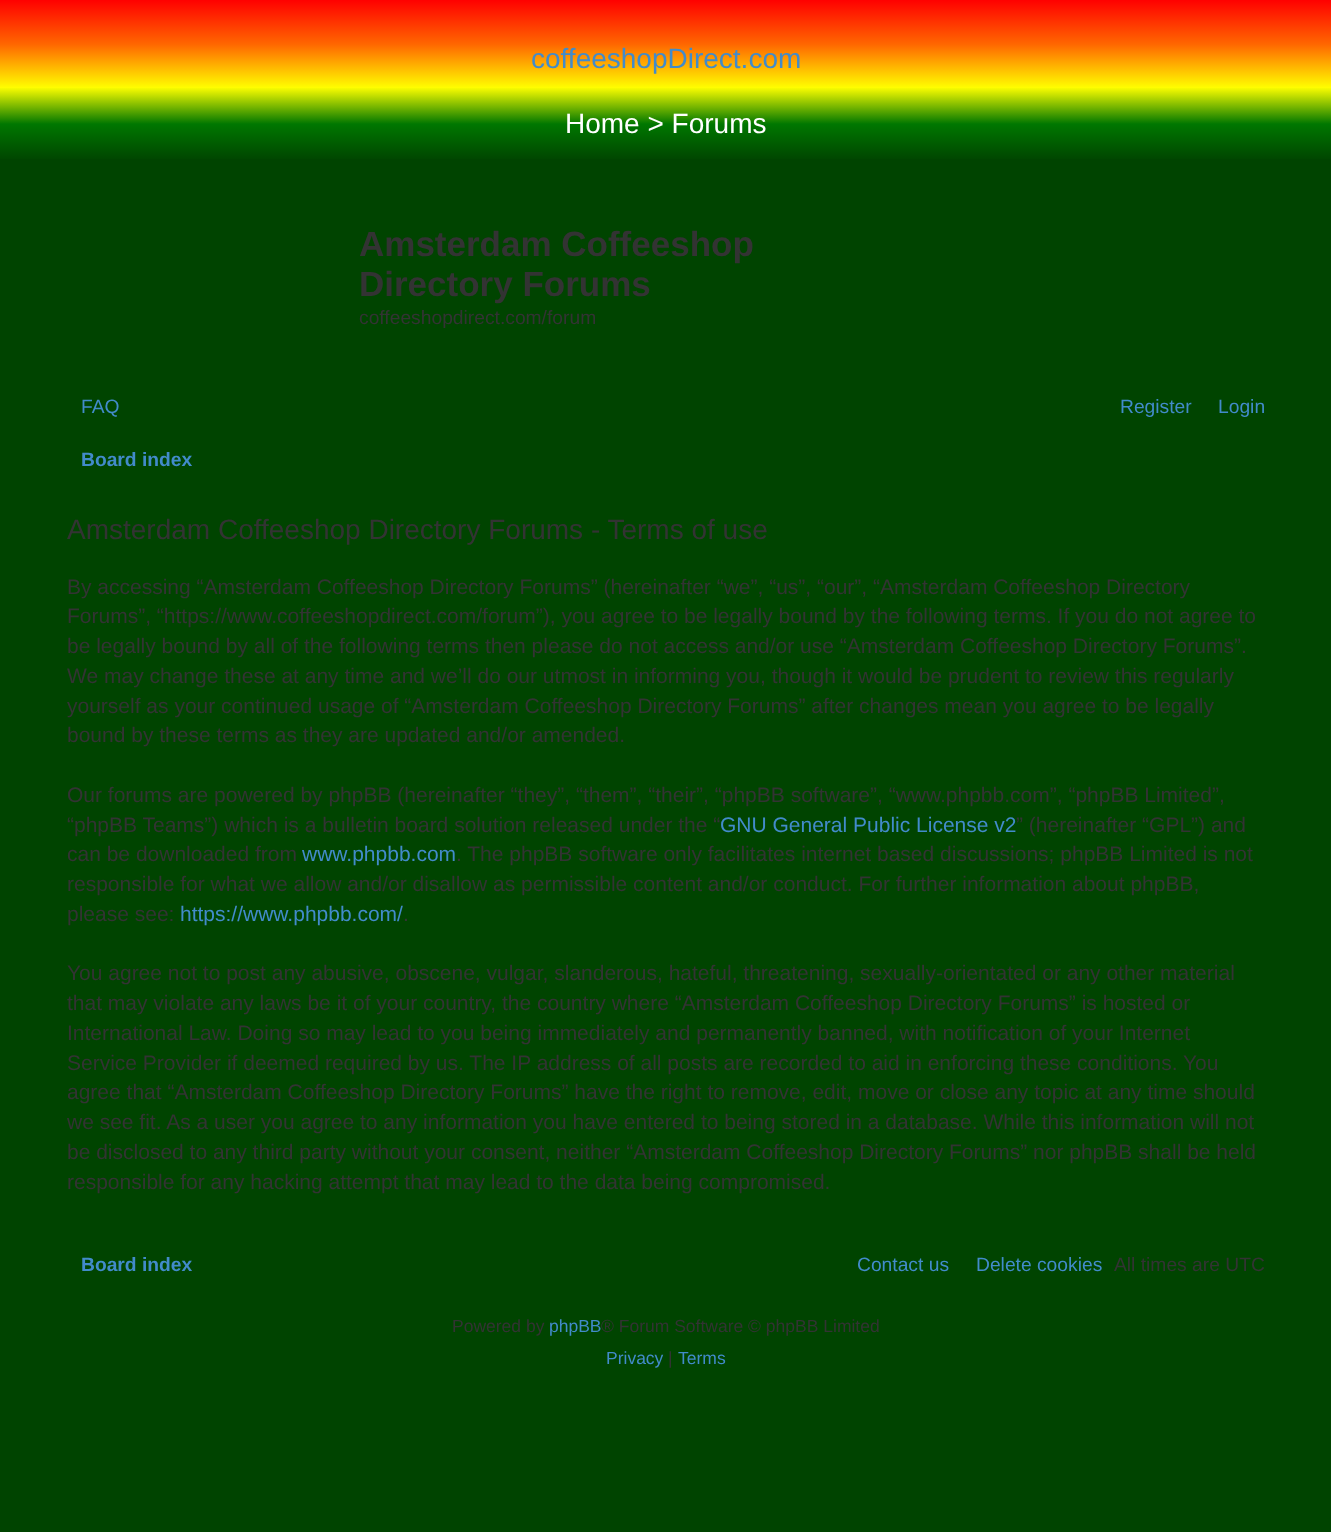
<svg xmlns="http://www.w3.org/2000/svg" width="1331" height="1532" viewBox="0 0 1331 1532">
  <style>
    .t1 { font: 28px Liberation Sans; fill: #428bca; }
    .t2 { font: 28px Liberation Sans; fill: #fff; }
    .t3 { font: bold 35px Liberation Sans; fill: #333; }
    .t4 { font: 19.25px Liberation Sans; fill: #333; }
    .t5 { font: 19.25px Liberation Sans; fill: #428bca; }
    .t6 { font: bold 19.25px Liberation Sans; fill: #428bca; }
    .t7 { font: 28px Liberation Sans; fill: #333; }
    .t8 { font: 21px Liberation Sans; fill: #333; }
    .t9 { font: 21px Liberation Sans; fill: #428bca; }
    .t10 { font: 17.5px Liberation Sans; fill: #333; }
    .t11 { font: 17.5px Liberation Sans; fill: #428bca; }
  </style>
  <defs>
    <linearGradient id="g1" gradientUnits="userSpaceOnUse" x1="666" y1="0" x2="666" y2="88"><stop offset="0" stop-color="#f00"/><stop offset="0.5" stop-color="#f60"/><stop offset="1" stop-color="#ff0"/></linearGradient>
    <linearGradient id="g2" gradientUnits="userSpaceOnUse" x1="666" y1="87" x2="666" y2="161"><stop offset="0" stop-color="#ff0"/><stop offset="0.5" stop-color="#070"/><stop offset="1" stop-color="#040"/></linearGradient>
  </defs>
  <rect width="100%" height="100%" fill="#040"/>
  <rect x="0" y="0" width="1331" height="88" fill="url(#g1)"/>
  <text x="531" y="68" class="t1">coffeeshopDirect.com</text>
  <rect x="0" y="88" width="1331" height="71" fill="url(#g2)"/>
  <text x="565" y="133" class="t2">Home &gt; Forums</text>
  <text x="359" y="256" class="t3">Amsterdam Coffeeshop</text>
  <text x="359" y="296" class="t3">Directory Forums</text>
  <text x="359" y="324" class="t4">coffeeshopdirect.com/forum</text>
  <text x="81" y="413" class="t5">FAQ</text>
  <text x="1120" y="413" class="t5">Register</text>
  <text x="1218" y="413" class="t5">Login</text>
  <text x="81" y="466" class="t6">Board index</text>
  <text x="67" y="539" class="t7">Amsterdam Coffeeshop Directory Forums - Terms of use</text>
  <text x="67" y="594" class="t8">By accessing “Amsterdam Coffeeshop Directory Forums” (hereinafter “we”, “us”, “our”, “Amsterdam Coffeeshop Directory</text>
  <text x="67" y="623" class="t8">Forums”, “https://www.coffeeshopdirect.com/forum”), you agree to be legally bound by the following terms. If you do not agree to</text>
  <text x="67" y="653" class="t8">be legally bound by all of the following terms then please do not access and/or use “Amsterdam Coffeeshop Directory Forums”.</text>
  <text x="67" y="683" class="t8">We may change these at any time and we’ll do our utmost in informing you, though it would be prudent to review this regularly</text>
  <text x="67" y="713" class="t8">yourself as your continued usage of “Amsterdam Coffeeshop Directory Forums” after changes mean you agree to be legally</text>
  <text x="67" y="742" class="t8">bound by these terms as they are updated and/or amended.</text>
  <text x="67" y="802" class="t8">Our forums are powered by phpBB (hereinafter “they”, “them”, “their”, “phpBB software”, “www.phpbb.com”, “phpBB Limited”,</text>
  <text x="67" y="832" class="t8">“phpBB Teams”) which is a bulletin board solution released under the “</text>
  <text x="720" y="832" class="t9">GNU General Public License v2</text>
  <text x="1016" y="832" class="t8">” (hereinafter “GPL”) and</text>
  <text x="67" y="861" class="t8">can be downloaded from</text>
  <text x="302" y="861" class="t9">www.phpbb.com</text>
  <text x="456" y="861" class="t8">. The phpBB software only facilitates internet based discussions; phpBB Limited is not</text>
  <text x="67" y="891" class="t8">responsible for what we allow and/or disallow as permissible content and/or conduct. For further information about phpBB,</text>
  <text x="67" y="921" class="t8">please see:</text>
  <text x="180" y="921" class="t9">https://www.phpbb.com/</text>
  <text x="403" y="921" class="t8">.</text>
  <text x="67" y="980" class="t8">You agree not to post any abusive, obscene, vulgar, slanderous, hateful, threatening, sexually-orientated or any other material</text>
  <text x="67" y="1010" class="t8">that may violate any laws be it of your country, the country where “Amsterdam Coffeeshop Directory Forums” is hosted or</text>
  <text x="67" y="1040" class="t8">International Law. Doing so may lead to you being immediately and permanently banned, with notification of your Internet</text>
  <text x="67" y="1070" class="t8">Service Provider if deemed required by us. The IP address of all posts are recorded to aid in enforcing these conditions. You</text>
  <text x="67" y="1099" class="t8">agree that “Amsterdam Coffeeshop Directory Forums” have the right to remove, edit, move or close any topic at any time should</text>
  <text x="67" y="1129" class="t8">we see fit. As a user you agree to any information you have entered to being stored in a database. While this information will not</text>
  <text x="67" y="1159" class="t8">be disclosed to any third party without your consent, neither “Amsterdam Coffeeshop Directory Forums” nor phpBB shall be held</text>
  <text x="67" y="1189" class="t8">responsible for any hacking attempt that may lead to the data being compromised.</text>
  <text x="81" y="1271" class="t6">Board index</text>
  <text x="857" y="1271" class="t5">Contact us</text>
  <text x="976" y="1271" class="t5">Delete cookies</text>
  <text x="1114" y="1271" class="t4">All times are UTC</text>
  <text x="452" y="1332" class="t10">Powered by</text>
  <text x="549" y="1332" class="t11">phpBB</text>
  <text x="601" y="1332" class="t10">® Forum Software © phpBB Limited</text>
  <text x="606" y="1364" class="t11">Privacy</text>
  <text x="668" y="1364" class="t10">|</text>
  <text x="678" y="1364" class="t11">Terms</text>
</svg>
